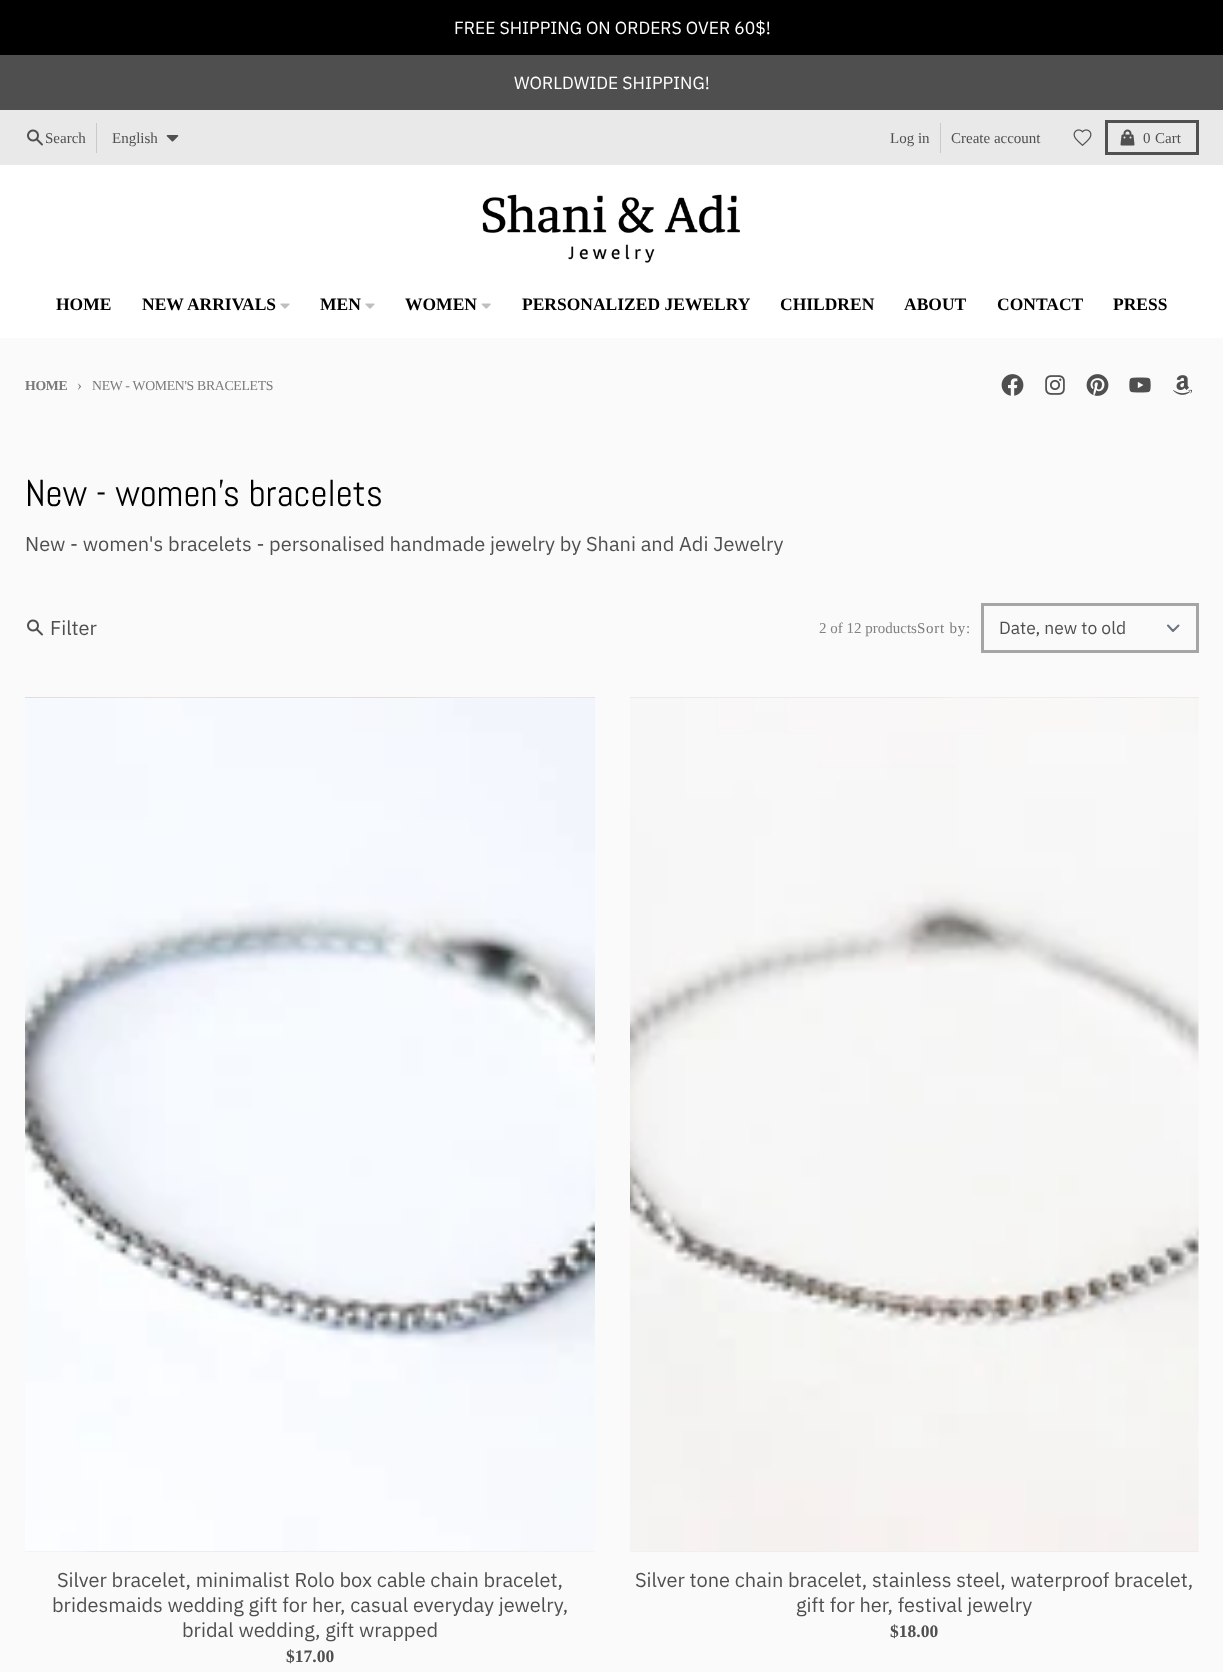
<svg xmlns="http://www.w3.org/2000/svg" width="1223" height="1672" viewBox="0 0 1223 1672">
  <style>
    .t1 { font: 17.5px IBM Plex Sans; fill: #fff; }
    .t2 { font: 15px Liberation Serif; fill: #4f4f4f; }
    .t3 { font: bold 17.5px Liberation Serif; fill: #000; }
    .t4 { font: bold 13.75px Liberation Serif; letter-spacing: -0.3px; fill: #7a7a7a; }
    .t5 { font: 15px Liberation Serif; letter-spacing: -0.3px; fill: #7a7a7a; }
    .t6 { font: 13.75px Liberation Serif; letter-spacing: -0.3px; fill: #7a7a7a; }
    .t7 { font: 37.5px Abel; fill: #000; }
    .t8 { font: 20px IBM Plex Sans; fill: #4f4f4f; }
    .t9 { font: 15px Liberation Serif; fill: #828282; }
    .t10 { font: 15px Liberation Serif; letter-spacing: 0.75px; fill: #7a7a7a; }
    .t11 { font: 17.5px IBM Plex Sans; fill: #4f4f4f; }
    .t12 { font: bold 17.5px Liberation Serif; fill: #4f4f4f; }
  </style>
  <rect width="100%" height="100%" fill="#e9e9e9"/>
  <rect x="0" y="0" width="1223" height="55" fill="#000"/>
  <text x="454" y="34" class="t1">FREE SHIPPING ON ORDERS OVER 60$!</text>
  <rect x="0" y="55" width="1223" height="55" fill="#4f4f4f"/>
  <text x="514" y="89" class="t1">WORLDWIDE SHIPPING!</text>
  <image x="27" y="129" width="16" height="17" href="images/1.png"/>
  <text x="45" y="143" class="t2">Search</text>
  <rect x="96" y="123" width="1" height="30" fill="#cacaca"/>
  <text x="112" y="143" class="t2">English</text>
  <image x="166" y="135" width="13" height="7" href="images/2.png"/>
  <text x="890" y="143" class="t2">Log in</text>
  <rect x="940" y="123" width="1" height="30" fill="#cacaca"/>
  <text x="951" y="143" class="t2">Create account</text>
  <image x="1073" y="129" width="19" height="17" href="images/3.png"/>
  <rect x="1106.5" y="121.5" width="91" height="32" fill="none" stroke="#505050" stroke-width="3"/>
  <image x="1120" y="129" width="15" height="17" href="images/4.png"/>
  <text x="1143" y="143" class="t2">0</text>
  <text x="1155" y="143" class="t2">Cart</text>
  <rect x="0" y="165" width="1223" height="173" fill="#fff"/>
  <image x="482" y="194" width="258" height="69" href="images/5.png"/>
  <text x="56" y="310" class="t3">HOME</text>
  <text x="142" y="310" class="t3">NEW ARRIVALS</text>
  <image x="280" y="303" width="10" height="6" href="images/6.png"/>
  <text x="320" y="310" class="t3">MEN</text>
  <image x="365" y="303" width="10" height="6" href="images/6.png"/>
  <text x="405" y="310" class="t3">WOMEN</text>
  <image x="481" y="303" width="10" height="6" href="images/7.png"/>
  <text x="522" y="310" class="t3">PERSONALIZED JEWELRY</text>
  <text x="780" y="310" class="t3">CHILDREN</text>
  <text x="904" y="310" class="t3">ABOUT</text>
  <text x="997" y="310" class="t3">CONTACT</text>
  <text x="1113" y="310" class="t3">PRESS</text>
  <rect x="0" y="338" width="1223" height="1334" fill="#fafafa"/>
  <text x="25" y="390" class="t4">HOME</text>
  <text x="77" y="390" class="t5">›</text>
  <text x="92" y="390" class="t6">NEW - WOMEN'S BRACELETS</text>
  <image x="1001" y="374" width="23" height="22" href="images/8.png"/>
  <image x="1045" y="375" width="20" height="20" href="images/9.png"/>
  <image x="1086" y="374" width="23" height="22" href="images/10.png"/>
  <image x="1129" y="377" width="22" height="16" href="images/11.png"/>
  <image x="1173" y="375" width="19" height="20" href="images/12.png"/>
  <text x="25" y="506" class="t7">New - women's bracelets</text>
  <text x="25" y="551" class="t8">New - women's bracelets - personalised handmade jewelry by Shani and Adi Jewelry</text>
  <image x="27" y="619" width="16" height="17" href="images/13.png"/>
  <text x="50" y="635" class="t8">Filter</text>
  <text x="819" y="633" class="t9">2 of 12 products</text>
  <text x="917" y="633" class="t10">Sort by:</text>
  <path d="M1168 625.5L1173 631L1178.5 625.5" fill="none" stroke="#6b7280" stroke-width="2" stroke-linecap="round" stroke-linejoin="round"/>
  <rect x="982.5" y="604.5" width="215" height="47" fill="none" stroke="#a5a5a5" stroke-width="3"/>
  <text x="999" y="634" class="t11">Date, new to old</text>
  <image x="25" y="697" width="570" height="855" href="images/14.png"/>
  <image x="25" y="697" width="570" height="854" href="images/15.png"/>
  <text x="57" y="1587" class="t8">Silver bracelet, minimalist Rolo box cable chain bracelet,</text>
  <text x="52" y="1612" class="t8">bridesmaids wedding gift for her, casual everyday jewelry,</text>
  <text x="182" y="1637" class="t8">bridal wedding, gift wrapped</text>
  <text x="286" y="1662" class="t12">$17.00</text>
  <image x="630" y="697" width="569" height="855" href="images/16.png"/>
  <rect x="1198" y="698" width="1" height="853" fill="#fafafa"/>
  <image x="630" y="697" width="569" height="854" href="images/17.png"/>
  <text x="635" y="1587" class="t8">Silver tone chain bracelet, stainless steel, waterproof bracelet,</text>
  <text x="796" y="1612" class="t8">gift for her, festival jewelry</text>
  <text x="890" y="1637" class="t12">$18.00</text>
</svg>
